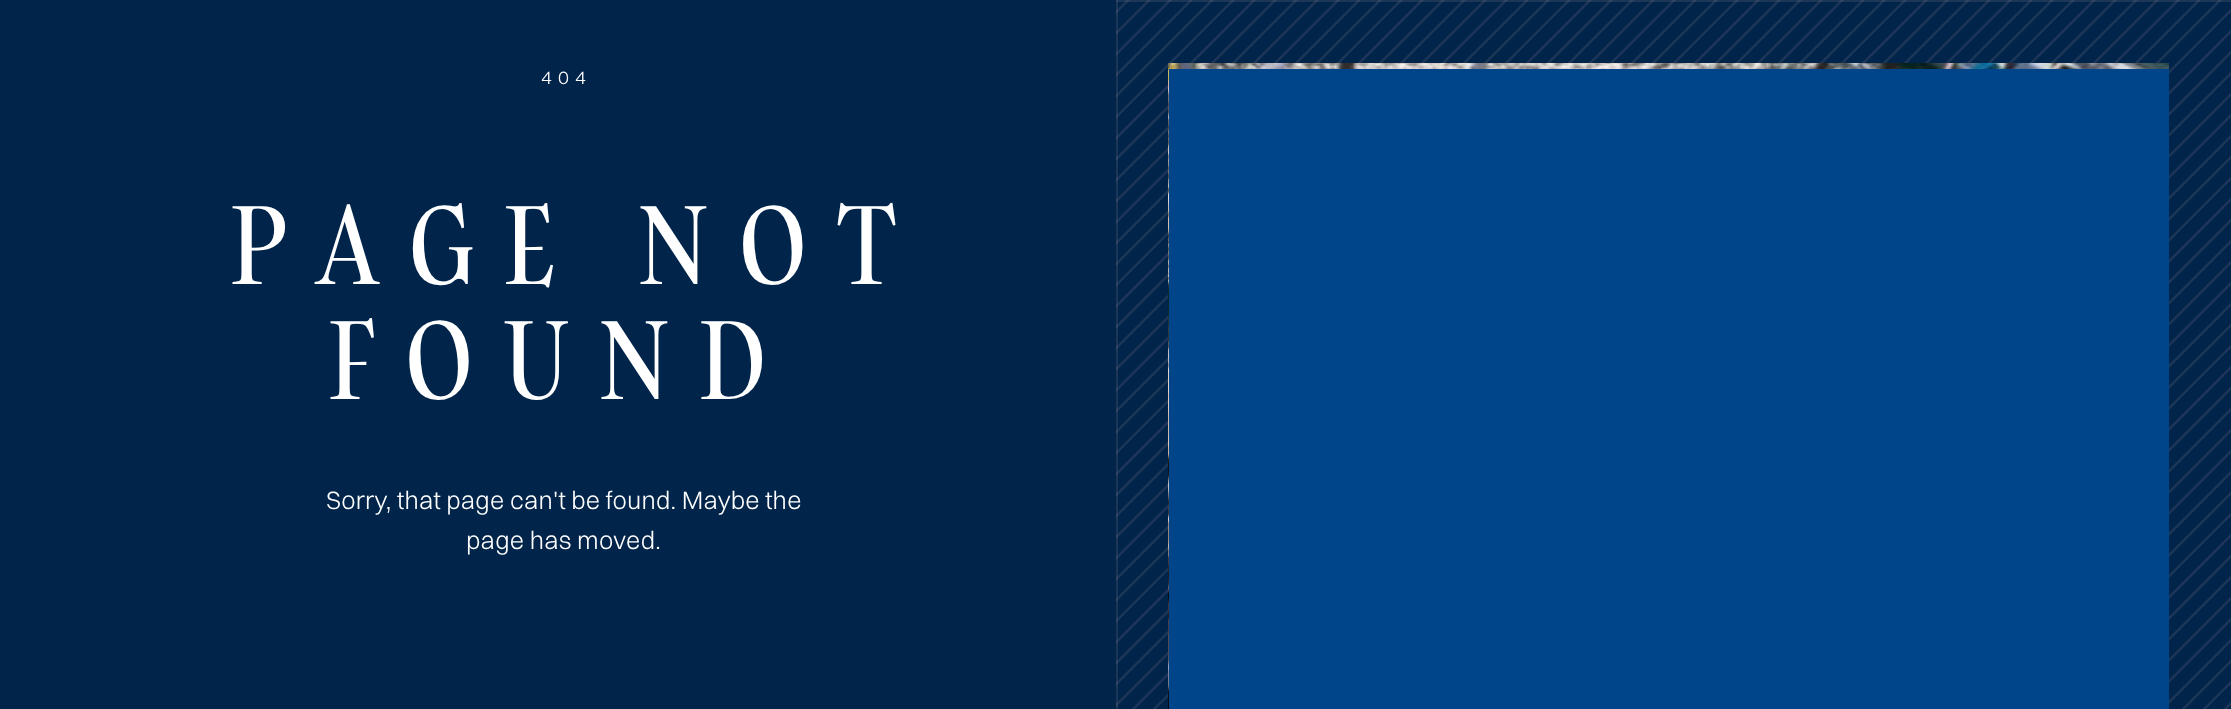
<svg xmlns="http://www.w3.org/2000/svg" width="2231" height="709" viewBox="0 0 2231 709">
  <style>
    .t1 { font: 300 19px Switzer; letter-spacing: 6px; fill: #fff; }
    .t2 { font: 105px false; letter-spacing: 31.5px; fill: #fff; }
    .t3 { font: 300 25.25px Switzer; letter-spacing: 0.2px; fill: #fff; }
  </style>
  <rect width="100%" height="100%" fill="#00244a"/>
  <text x="541" y="84" class="t1">404</text>
  <text x="231" y="284" class="t2">PAGE NOT</text>
  <text x="329" y="399" class="t2">FOUND</text>
  <text x="326" y="509" class="t3">Sorry, that page can't be found. Maybe the</text>
  <text x="466" y="549" class="t3">page has moved.</text>
  <image x="1116" y="0" width="1115" height="709" href="images/2.png"/>
  <image x="1168" y="63" width="1001" height="646" href="images/1.png"/>
  <rect x="1169" y="69" width="1000" height="640" fill="#004489"/>
  <rect x="1116" y="0" width="1115" height="2" fill="#d3b1b121"/>
  <rect x="1116" y="0" width="2" height="709" fill="#d3b1b121"/>
</svg>
